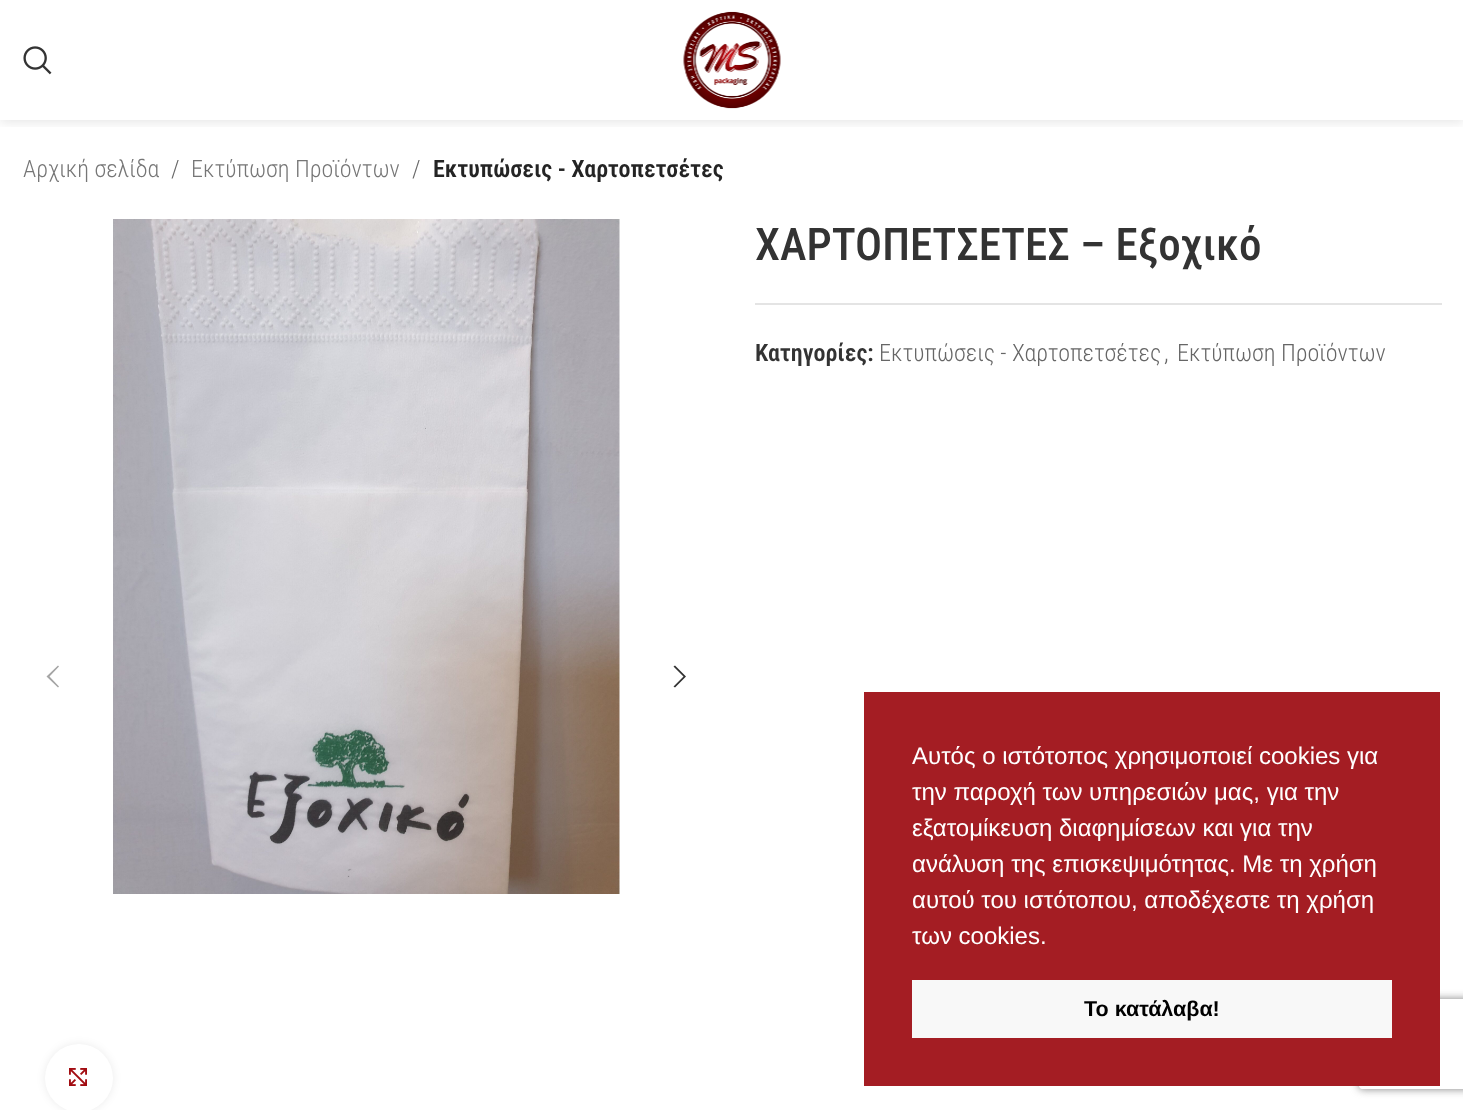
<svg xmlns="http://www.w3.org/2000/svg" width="1463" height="1110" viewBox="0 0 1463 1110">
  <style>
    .t1 { font: 300 24px Roboto Condensed; fill: #767676; }
    .t2 { font: 300 24px Roboto Condensed; fill: #666; }
    .t3 { font: 600 24px Roboto Condensed; fill: #242424; }
    .t4 { font: 500 45px Roboto Condensed; fill: #333; }
    .t5 { font: 600 24px Roboto Condensed; fill: #333; }
    .t6 { font: 24px Liberation Sans; fill: #fff; }
    .t7 { font: bold 21.5px Liberation Sans; fill: #000; }
  </style>
  <defs>
    <clipPath id="clip1"><rect x="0" y="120" width="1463" height="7"/></clipPath>
    <clipPath id="clip2"><path d="M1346 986H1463V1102H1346ZM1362 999H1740C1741.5 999 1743 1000.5 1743 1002V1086C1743 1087.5 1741.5 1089 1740 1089H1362C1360.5 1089 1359 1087.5 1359 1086V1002C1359 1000.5 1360.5 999 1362 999Z" clip-rule="evenodd"/></clipPath>
  </defs>
  <rect width="100%" height="100%" fill="#fff"/>
  <g clip-path="url(#clip1)">
    <rect x="0" y="2" width="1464" height="120" fill="#0000001a" filter="blur(6px)"/>
  </g>
  <image x="23" y="46" width="29" height="29" href="images/1.png"/>
  <image x="683" y="11" width="98" height="98" href="images/2.png"/>
  <text x="23" y="177" class="t1">Αρχική σελίδα</text>
  <text x="171" y="177" class="t2">/</text>
  <text x="191" y="177" class="t1">Εκτύπωση Προϊόντων</text>
  <text x="412" y="177" class="t2">/</text>
  <text x="433" y="177" class="t3">Εκτυπώσεις - Χαρτοπετσέτες</text>
  <image x="113" y="219" width="507" height="675" href="images/3.png"/>
  <path d="M59 666.5L58 665.5L46.5 676.5L58 687.5L59 686.5L49.5 676.5Z" fill="#a5a5a5"/>
  <path d="M673.5 666.5L683.5 676.5L673.5 686.5L675 687.5L686 676.5L675 665.5Z" fill="#333"/>
  <rect x="45" y="1044" width="68" height="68" rx="34" fill="#00000014" filter="blur(4px)"/>
  <circle cx="79" cy="1078" r="34" fill="#fff"/>
  <image x="69" y="1068" width="18" height="18" href="images/4.png"/>
  <text x="755" y="260" class="t4">ΧΑΡΤΟΠΕΤΣΕΤΕΣ – Εξοχικό</text>
  <rect x="755" y="303" width="687" height="2" fill="#e4e4e4"/>
  <text x="755" y="361" class="t5">Κατηγορίες:</text>
  <text x="879" y="361" class="t2">Εκτυπώσεις - Χαρτοπετσέτες</text>
  <text x="1164" y="361" class="t2">,</text>
  <text x="1177" y="361" class="t2">Εκτύπωση Προϊόντων</text>
  <g clip-path="url(#clip2)">
    <rect x="1359" y="999" width="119" height="90" rx="3" fill="#808080" filter="blur(4px)"/>
  </g>
  <rect x="864" y="692" width="576" height="394" fill="#a41d23"/>
  <text x="912" y="764" class="t6">Αυτός ο ιστότοπος χρησιμοποιεί cookies για</text>
  <text x="912" y="800" class="t6">την παροχή των υπηρεσιών μας, για την</text>
  <text x="912" y="836" class="t6">εξατομίκευση διαφημίσεων και για την</text>
  <text x="912" y="872" class="t6">ανάλυση της επισκεψιμότητας. Με τη χρήση</text>
  <text x="912" y="908" class="t6">αυτού του ιστότοπου, αποδέχεστε τη χρήση</text>
  <text x="912" y="944" class="t6">των cookies.</text>
  <rect x="912" y="980" width="480" height="58" fill="#f8f8f8"/>
  <text x="1084" y="1016" class="t7">Το κατάλαβα!</text>
</svg>
